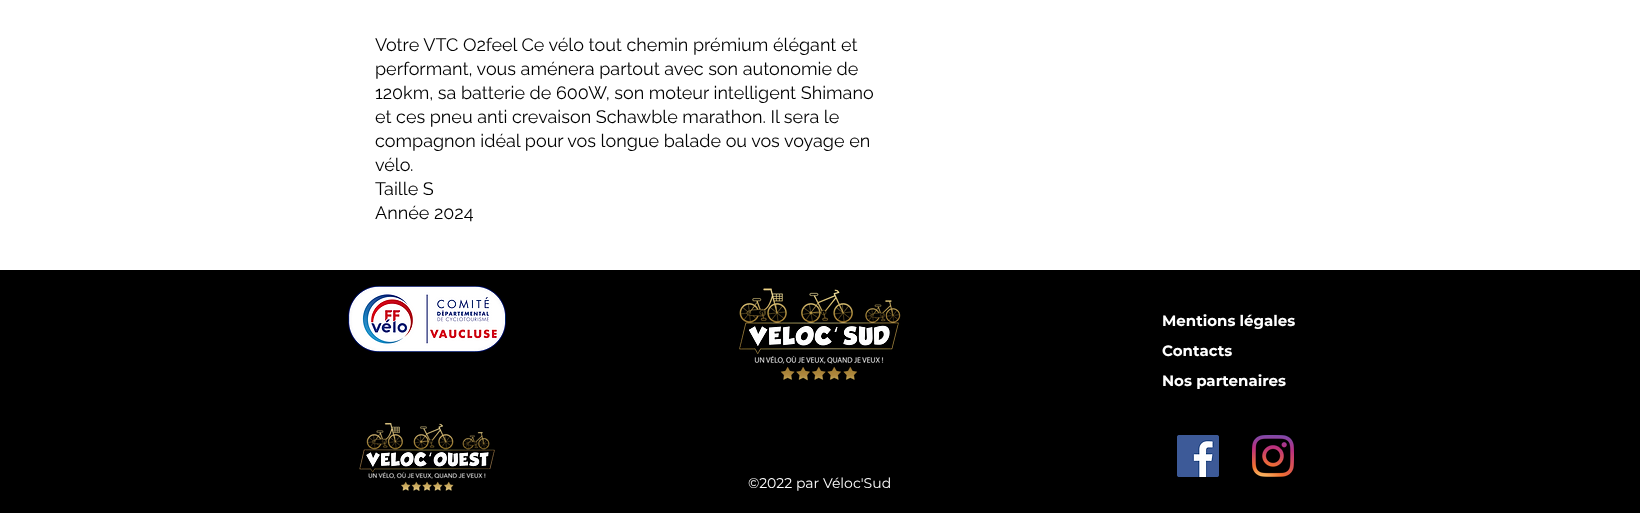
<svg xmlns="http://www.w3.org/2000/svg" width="1640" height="513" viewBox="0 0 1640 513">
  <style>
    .t1 { font: 18px Raleway; fill: #000; }
    .t2 { font: bold 15px Montserrat; fill: #fff; }
    .t3 { font: 14px Montserrat; fill: #fff; }
  </style>
  <rect width="100%" height="100%" fill="#fff"/>
  <text x="375" y="51" class="t1">Votre VTC O2feel Ce vélo tout chemin prémium élégant et</text>
  <text x="375" y="75" class="t1">performant, vous aménera partout avec son autonomie de</text>
  <text x="375" y="99" class="t1">120km, sa batterie de 600W, son moteur intelligent Shimano</text>
  <text x="375" y="123" class="t1">et ces pneu anti crevaison Schawble marathon. Il sera le</text>
  <text x="375" y="147" class="t1">compagnon idéal pour vos longue balade ou vos voyage en</text>
  <text x="375" y="171" class="t1">vélo.</text>
  <text x="375" y="195" class="t1">Taille S</text>
  <text x="375" y="219" class="t1">Année 2024</text>
  <rect x="0" y="270" width="1640" height="243" fill="#000"/>
  <image x="348" y="286" width="158" height="66" href="images/1.png"/>
  <image x="739" y="288" width="162" height="93" href="images/2.png"/>
  <text x="1162" y="326" class="t2">Mentions légales</text>
  <text x="1162" y="356" class="t2">Contacts</text>
  <text x="1162" y="386" class="t2">Nos partenaires</text>
  <image x="359" y="422" width="136" height="69" href="images/3.png"/>
  <image x="1177" y="435" width="42" height="42" href="images/4.png"/>
  <image x="1252" y="435" width="42" height="42" href="images/5.png"/>
  <text x="748" y="488" class="t3">©2022 par Véloc'Sud</text>
</svg>
